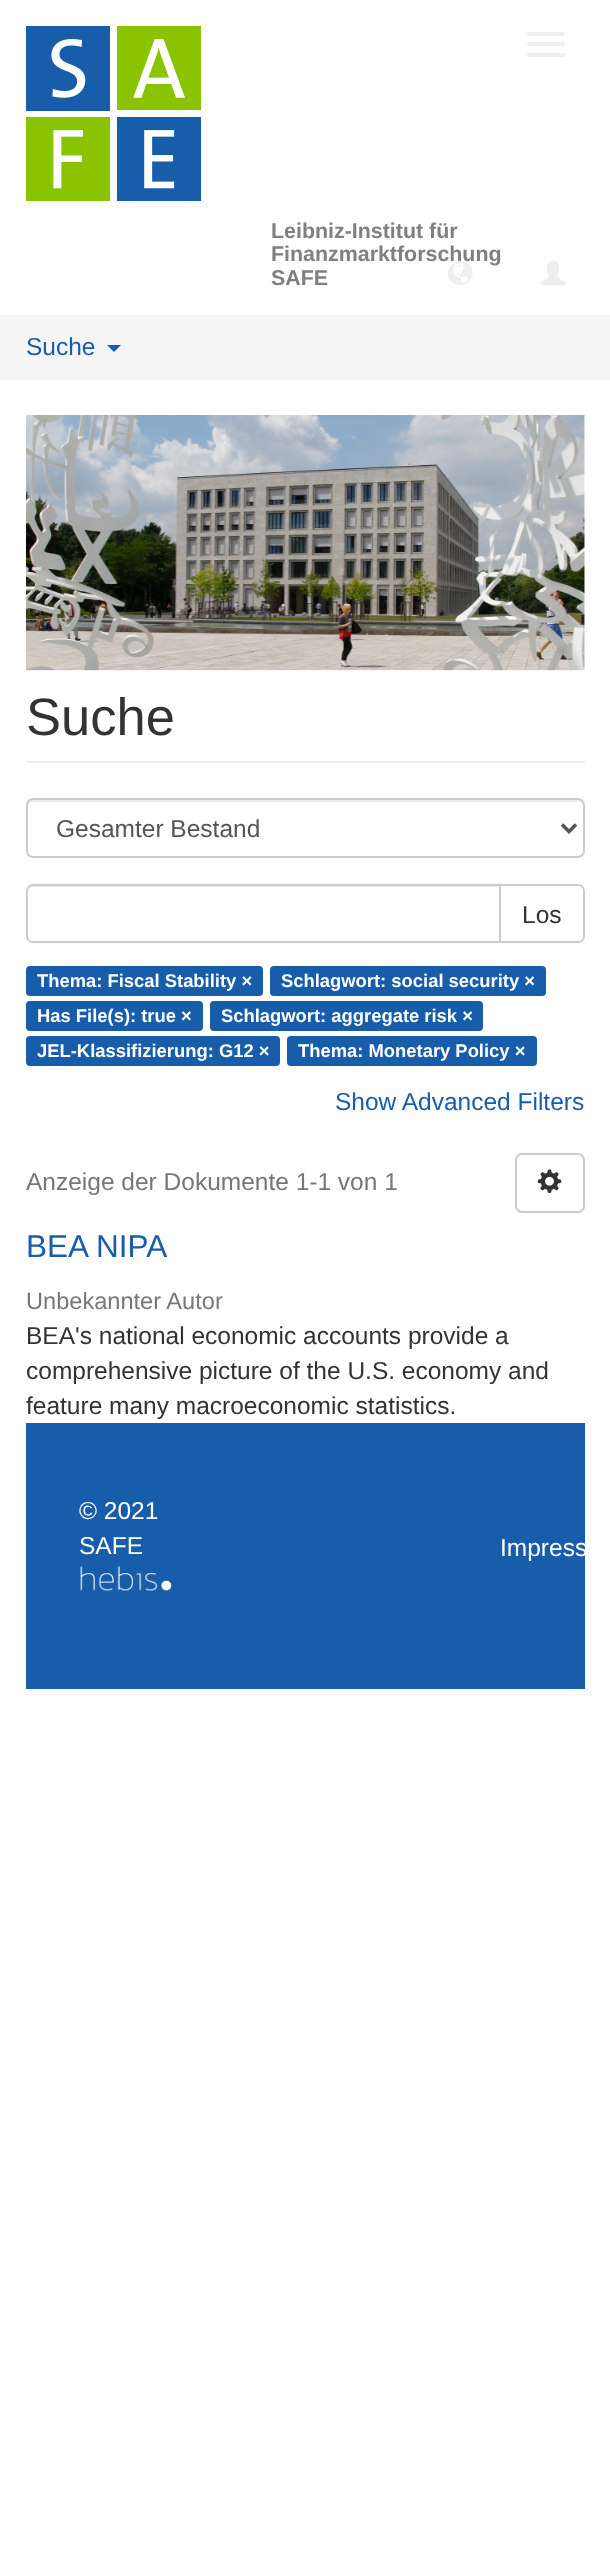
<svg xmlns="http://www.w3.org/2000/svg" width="610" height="2574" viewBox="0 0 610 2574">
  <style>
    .t1 { font: bold 21.4px Liberation Sans; fill: #7f7f7f; }
    .t2 { font: 24.5px Liberation Sans; fill: #185da9; }
    .t3 { font: 52.5px Liberation Sans; fill: #333; }
    .t4 { font: 24.5px Liberation Sans; fill: #555; }
    .t5 { font: 24.5px Liberation Sans; fill: #333; }
    .t6 { font: bold 18.4px Liberation Sans; fill: #fff; }
    .t7 { font: 24.5px Liberation Sans; fill: #777; }
    .t8 { font: 31.5px Liberation Sans; fill: #185da9; }
    .t9 { font: 23.6px Liberation Sans; fill: #777; }
    .t10 { font: 24.5px Liberation Sans; fill: #fff; }
  </style>
  <defs>
    <clipPath id="clip1"><rect x="26" y="1423" width="559" height="266"/></clipPath>
  </defs>
  <rect width="100%" height="100%" fill="#fff"/>
  <rect x="527" y="32" width="38" height="4" rx="2" fill="#eee"/>
  <rect x="527" y="42" width="38" height="4" rx="2" fill="#eee"/>
  <rect x="527" y="53" width="38" height="4" rx="2" fill="#eee"/>
  <image x="26" y="26" width="175" height="175" href="images/1.png"/>
  <text x="271" y="238" class="t1">Leibniz-Institut für</text>
  <text x="271" y="261" class="t1">Finanzmarktforschung</text>
  <text x="271" y="285" class="t1">SAFE</text>
  <image x="448" y="260" width="25" height="25" href="images/2.png"/>
  <image x="540" y="261" width="26" height="25" href="images/3.png"/>
  <rect x="0" y="315" width="610" height="65" fill="#f5f5f5"/>
  <text x="26" y="355" class="t2">Suche</text>
  <path d="M107 345H121L114 352Z" fill="#185da9"/>
  <image x="26" y="415" width="559" height="256" href="images/4.png"/>
  <rect x="26" y="761" width="559" height="2" fill="#eee"/>
  <text x="26" y="735" class="t3">Suche</text>
  <path d="M33 802H578C580 802 583 804 583 807V805C583 802 581 800 578 800H33C30 800 28 802 28 805V807C28 804 30 802 33 802Z" fill="#ececec"/>
  <rect x="27" y="799" width="557" height="58" rx="6" fill="none" stroke="#ccc" stroke-width="2"/>
  <path d="M562 824.5L569 831.5L576 824.5" fill="none" stroke="#555" stroke-width="3.5"/>
  <text x="56" y="837" class="t4">Gesamter Bestand</text>
  <path d="M500 885H578C581.5 885 584 887.5 584 891V936C584 939.5 581.5 942 578 942H500Z" fill="none" stroke="#ccc" stroke-width="2"/>
  <path d="M33 884H501V943H33C29 943 26 940 26 936V891C26 887 29 884 33 884Z" fill="#fff"/>
  <path d="M33 887H499V886H33C30 886 28 888 28 891V892C28 890 30 887 33 887Z" fill="#ececec"/>
  <path d="M33 885H500V942H33C29.5 942 27 939.5 27 936V891C27 887.5 29.5 885 33 885Z" fill="none" stroke="#ccc" stroke-width="2"/>
  <text x="522" y="923" class="t5">Los</text>
  <rect x="26" y="966" width="237" height="30" rx="4" fill="#185da9"/>
  <text x="37" y="987" class="t6">Thema: Fiscal Stability ×</text>
  <rect x="270" y="966" width="276" height="30" rx="4" fill="#185da9"/>
  <text x="281" y="987" class="t6">Schlagwort: social security ×</text>
  <rect x="26" y="1001" width="177" height="30" rx="4" fill="#185da9"/>
  <text x="37" y="1022" class="t6">Has File(s): true ×</text>
  <rect x="210" y="1001" width="273" height="30" rx="4" fill="#185da9"/>
  <text x="221" y="1022" class="t6">Schlagwort: aggregate risk ×</text>
  <rect x="26" y="1036" width="254" height="30" rx="4" fill="#185da9"/>
  <text x="37" y="1057" class="t6">JEL-Klassifizierung: G12 ×</text>
  <rect x="287" y="1036" width="250" height="30" rx="4" fill="#185da9"/>
  <text x="298" y="1057" class="t6">Thema: Monetary Policy ×</text>
  <text x="335" y="1110" class="t2">Show Advanced Filters</text>
  <text x="26" y="1190" class="t7">Anzeige der Dokumente 1-1 von 1</text>
  <rect x="516" y="1154" width="68" height="58" rx="6" fill="none" stroke="#ccc" stroke-width="2"/>
  <image x="537" y="1169" width="25" height="24" href="images/5.png"/>
  <text x="26" y="1257" class="t8">BEA NIPA</text>
  <text x="26" y="1309" class="t9">Unbekannter Autor</text>
  <text x="26" y="1344" class="t5">BEA's national economic accounts provide a</text>
  <text x="26" y="1379" class="t5">comprehensive picture of the U.S. economy and</text>
  <text x="26" y="1414" class="t5">feature many macroeconomic statistics.</text>
  <rect x="26" y="1423" width="559" height="266" fill="#185da9"/>
  <text x="79" y="1519" class="t10">© 2021</text>
  <text x="79" y="1554" class="t10">SAFE</text>
  <image x="80" y="1566" width="92" height="25" href="images/6.png"/>
  <g clip-path="url(#clip1)">
    <text x="500" y="1556" class="t10">Impress</text>
  </g>
</svg>
